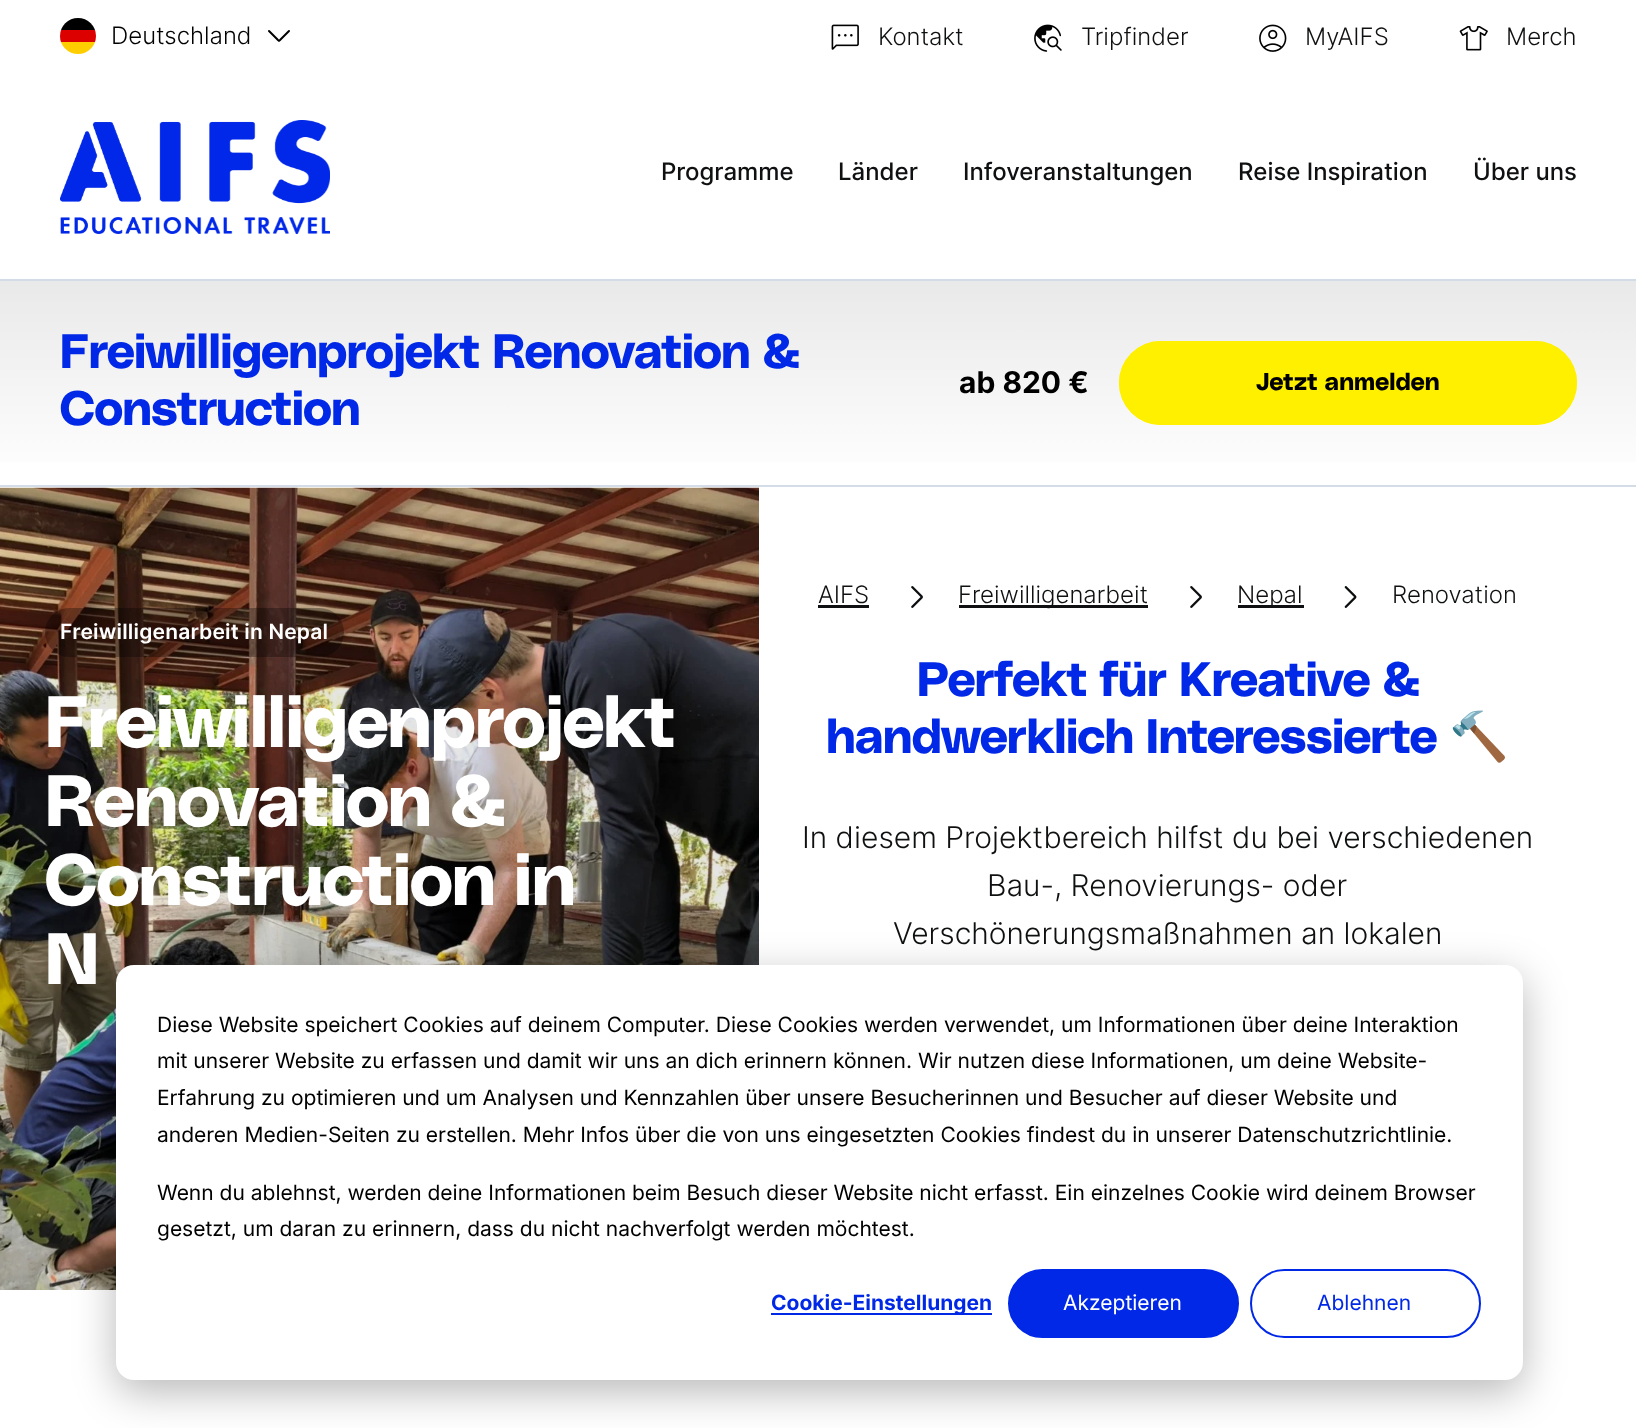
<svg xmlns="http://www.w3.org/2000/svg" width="1636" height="1428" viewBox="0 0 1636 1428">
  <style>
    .t1 { font: 300 24px Inter; fill: #000; }
    .t2 { font: 300 24px Inter; fill: #0f1011; }
    .t3 { font: 500 24px Inter; fill: #0f1011; }
    .t4 { font: bold 48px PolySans; fill: #0028e6; }
    .t5 { font: bold 30px Inter; fill: #000; }
    .t6 { font: bold 24px PolySans; letter-spacing: 0.5px; fill: #000; }
    .t7 { font: 600 21px Inter; letter-spacing: 0.2px; fill: #fff; }
    .t8 { font: bold 72px PolySans; fill: #fff; }
    .t9 { font: bold 48px Noto Color Emoji; fill: #0028e6; }
    .t10 { font: 300 30px Inter; fill: #0f1011; }
    .t11 { font: 21px Inter; fill: #000; }
    .t12 { font: bold 21px Inter; fill: #0028e6; }
    .t13 { font: 21px Inter; fill: #fff; }
    .t14 { font: 21px Inter; fill: #0028e6; }
  </style>
  <defs>
    <clipPath id="clip1"><rect x="60" y="18" width="36" height="36" rx="18"/></clipPath>
    <linearGradient id="g1" gradientUnits="userSpaceOnUse" x1="818" y1="280" x2="818" y2="485"><stop offset="0" stop-color="#e9e9e9"/><stop offset="1" stop-color="#fff"/></linearGradient>
  </defs>
  <rect width="100%" height="100%" fill="#fff"/>
  <g clip-path="url(#clip1)">
    <rect x="61" y="42" width="34" height="12" fill="#ffce00"/>
    <rect x="61" y="18" width="34" height="12" fill="#000"/>
    <rect x="60" y="30" width="36" height="12" fill="#d00"/>
  </g>
  <text x="111" y="44" class="t1">Deutschland</text>
  <path d="M289 31L281 39C278.5 41.5 279.5 41.5 277 39L269 31" fill="none" stroke="#000" stroke-width="2" stroke-linecap="round" stroke-linejoin="round"/>
  <image x="831" y="24" width="28" height="26" href="images/1.png"/>
  <text x="878" y="45" class="t2">Kontakt</text>
  <image x="1034" y="24" width="28" height="28" href="images/2.png"/>
  <text x="1081" y="45" class="t2">Tripfinder</text>
  <image x="1259" y="24" width="28" height="28" href="images/3.png"/>
  <text x="1305" y="45" class="t2">MyAIFS</text>
  <image x="1459" y="26" width="29" height="25" href="images/4.png"/>
  <text x="1506" y="45" class="t2">Merch</text>
  <image x="60" y="120" width="270" height="114" href="images/5.png"/>
  <text x="661" y="180" class="t3">Programme</text>
  <text x="838" y="180" class="t3">Länder</text>
  <text x="963" y="180" class="t3">Infoveranstaltungen</text>
  <text x="1238" y="180" class="t3">Reise Inspiration</text>
  <text x="1473" y="180" class="t3">Über uns</text>
  <rect x="0" y="281" width="1636" height="181" fill="url(#g1)"/>
  <rect x="0" y="279" width="1636" height="2" fill="#d4dde7"/>
  <rect x="0" y="485" width="1636" height="2" fill="#d4dde7"/>
  <text x="60" y="368" class="t4">Freiwilligenprojekt Renovation &amp;</text>
  <text x="60" y="425" class="t4">Construction</text>
  <text x="959" y="393" class="t5">ab 820 €</text>
  <rect x="1120.5" y="342.5" width="455" height="81" rx="40.5" fill="none" stroke="#fff000" stroke-width="3"/>
  <rect x="1119" y="341" width="458" height="84" rx="42" fill="#fff000"/>
  <text x="1256" y="390" class="t6">Jetzt anmelden</text>
  <image x="0" y="487" width="759" height="803" href="images/6.png"/>
  <rect x="45" y="608" width="299" height="49" rx="24.5" fill="#0000004d"/>
  <text x="60" y="639" class="t7">Freiwilligenarbeit in Nepal</text>
  <text x="45" y="747" class="t8">Freiwilligenprojekt</text>
  <text x="45" y="826" class="t8">Renovation &amp;</text>
  <text x="45" y="905" class="t8">Construction in</text>
  <text x="45" y="984" class="t8">N</text>
  <text x="818" y="603" class="t2">AIFS</text>
  <rect x="818" y="605" width="51" height="3" fill="#0f1011"/>
  <image x="911" y="586" width="12" height="22" href="images/7.png"/>
  <rect x="959" y="605" width="189" height="3" fill="#0f1011"/>
  <text x="958" y="603" class="t2">Freiwilligenarbeit</text>
  <image x="1190" y="586" width="12" height="22" href="images/7.png"/>
  <rect x="1238" y="605" width="66" height="3" fill="#0f1011"/>
  <text x="1237" y="603" class="t2">Nepal</text>
  <image x="1344" y="586" width="13" height="22" href="images/8.png"/>
  <text x="1392" y="603" class="t2">Renovation</text>
  <text x="917" y="696" class="t4">Perfekt für Kreative &amp;</text>
  <text x="826" y="753" class="t4">handwerklich Interessierte</text>
  <text x="1449" y="753" class="t9">🔨</text>
  <text x="802" y="848" class="t10">In diesem Projektbereich hilfst du bei verschiedenen</text>
  <text x="987" y="896" class="t10">Bau-, Renovierungs- oder</text>
  <text x="893" y="944" class="t10">Verschönerungsmaßnahmen an lokalen</text>
  <rect x="116" y="977" width="1407" height="415" rx="18" fill="#00000047" filter="blur(21px)"/>
  <rect x="116" y="965" width="1407" height="415" rx="18" fill="#fff"/>
  <text x="157" y="1032" class="t11">Diese Website speichert Cookies auf deinem Computer. Diese Cookies werden verwendet, um Informationen über deine Interaktion</text>
  <text x="157" y="1068" class="t11">mit unserer Website zu erfassen und damit wir uns an dich erinnern können. Wir nutzen diese Informationen, um deine Website-</text>
  <text x="157" y="1105" class="t11">Erfahrung zu optimieren und um Analysen und Kennzahlen über unsere Besucherinnen und Besucher auf dieser Website und</text>
  <text x="157" y="1142" class="t11">anderen Medien-Seiten zu erstellen. Mehr Infos über die von uns eingesetzten Cookies findest du in unserer Datenschutzrichtlinie.</text>
  <text x="157" y="1200" class="t11">Wenn du ablehnst, werden deine Informationen beim Besuch dieser Website nicht erfasst. Ein einzelnes Cookie wird deinem Browser</text>
  <text x="157" y="1236" class="t11">gesetzt, um daran zu erinnern, dass du nicht nachverfolgt werden möchtest.</text>
  <rect x="771" y="1313" width="221" height="2" fill="#0028e6"/>
  <text x="771" y="1310" class="t12">Cookie-Einstellungen</text>
  <rect x="1009" y="1270" width="229" height="67" rx="33.5" fill="#0028e6" stroke="#0028e6" stroke-width="2"/>
  <text x="1063" y="1310" class="t13">Akzeptieren</text>
  <rect x="1251" y="1270" width="229" height="67" rx="33.5" fill="none" stroke="#0028e6" stroke-width="2"/>
  <text x="1317" y="1310" class="t14">Ablehnen</text>
</svg>
